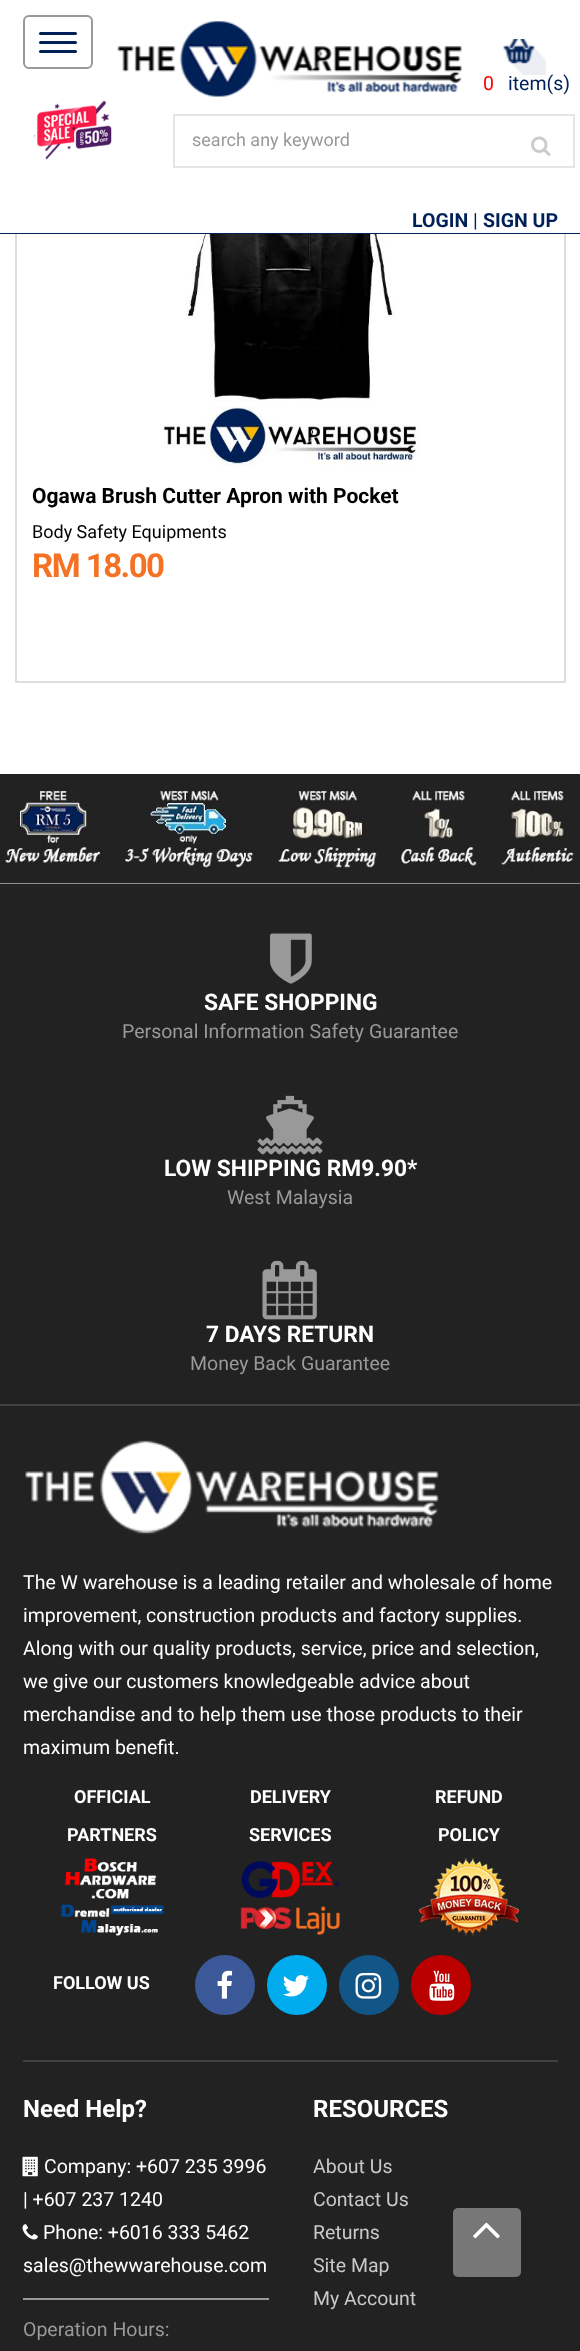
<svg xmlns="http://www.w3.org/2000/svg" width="580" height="2351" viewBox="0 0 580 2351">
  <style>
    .t1 { font: 19.5px Roboto; fill: #f00; }
    .t2 { font: 19.5px Roboto; fill: #002157; }
    .t3 { font: 18px Roboto; fill: #999; }
    .t4 { font: bold 19.5px Roboto; fill: #002157; }
    .t5 { font: bold 21px Roboto; fill: #000; }
    .t6 { font: 18px Roboto; fill: #000; }
    .t7 { font: bold 33px Roboto; letter-spacing: -1.5px; fill: #f57224; }
    .t8 { font: bold 22.75px Roboto; fill: #fff; }
    .t9 { font: 19.5px Roboto; fill: #999; }
    .t10 { font: 19.5px Roboto; fill: #fff; }
    .t11 { font: bold 18px Roboto; fill: #fff; }
    .t12 { font: bold 24px Roboto; fill: #fff; }
    .t13 { font: 19.5px Roboto; fill: #c9c9c9; }
  </style>
  <rect width="100%" height="100%" fill="#fff"/>
  <rect x="16" y="-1" width="549" height="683" fill="none" stroke="#ddd" stroke-width="2"/>
  <rect x="15" y="0" width="551" height="233" fill="#fff"/>
  <rect x="24" y="16" width="68" height="52" rx="5" fill="none" stroke="#999" stroke-width="2"/>
  <rect x="39" y="32" width="38" height="3" rx="1.5" fill="#002157"/>
  <rect x="39" y="41" width="38" height="3" rx="1.5" fill="#002157"/>
  <rect x="39" y="50" width="38" height="3" rx="1.5" fill="#002157"/>
  <image x="117" y="21" width="345" height="76" href="images/1.png"/>
  <image x="503" y="39" width="43" height="36" href="images/2.png"/>
  <text x="483" y="90" class="t1">0</text>
  <text x="508" y="90" class="t2">item(s)</text>
  <image x="34" y="100" width="78" height="60" href="images/3.png"/>
  <rect x="174" y="115" width="400" height="52" fill="none" stroke="#e5e5e5" stroke-width="2"/>
  <text x="192" y="146" class="t3">search any keyword</text>
  <image x="531" y="136" width="20" height="20" href="images/4.png"/>
  <text x="412" y="227" class="t4">LOGIN</text>
  <text x="473" y="227" class="t2">|</text>
  <text x="483" y="227" class="t4">SIGN UP</text>
  <rect x="0" y="233" width="580" height="1" fill="#002157"/>
  <image x="28" y="234" width="526" height="232" href="images/5.png"/>
  <text x="32" y="503" class="t5">Ogawa Brush Cutter Apron with Pocket</text>
  <text x="32" y="538" class="t6">Body Safety Equipments</text>
  <text x="32" y="577" class="t7">RM 18.00</text>
  <image x="0" y="774" width="580" height="110" href="images/6.png"/>
  <rect x="0" y="884" width="580" height="1467" fill="#222"/>
  <rect x="0" y="1404" width="580" height="2" fill="#404040"/>
  <image x="270" y="933" width="42" height="51" href="images/7.png"/>
  <text x="204" y="1010" class="t8">SAFE SHOPPING</text>
  <text x="122" y="1038" class="t9">Personal Information Safety Guarantee</text>
  <image x="257" y="1095" width="66" height="60" href="images/8.png"/>
  <text x="164" y="1176" class="t8">LOW SHIPPING RM9.90*</text>
  <text x="227" y="1204" class="t9">West Malaysia</text>
  <image x="262" y="1260" width="55" height="60" href="images/9.png"/>
  <text x="206" y="1342" class="t8">7 DAYS RETURN</text>
  <text x="190" y="1370" class="t9">Money Back Guarantee</text>
  <image x="25" y="1440" width="414" height="94" href="images/10.png"/>
  <text x="23" y="1589" class="t10">The W warehouse is a leading retailer and wholesale of home</text>
  <text x="23" y="1622" class="t10">improvement, construction products and factory supplies.</text>
  <text x="23" y="1655" class="t10">Along with our quality products, service, price and selection,</text>
  <text x="23" y="1688" class="t10">we give our customers knowledgeable advice about</text>
  <text x="23" y="1721" class="t10">merchandise and to help them use those products to their</text>
  <text x="23" y="1754" class="t10">maximum benefit.</text>
  <text x="74" y="1803" class="t11">OFFICIAL</text>
  <text x="67" y="1841" class="t11">PARTNERS</text>
  <image x="61" y="1858" width="103" height="78" href="images/11.png"/>
  <text x="250" y="1803" class="t11">DELIVERY</text>
  <text x="249" y="1841" class="t11">SERVICES</text>
  <image x="240" y="1861" width="100" height="74" href="images/12.png"/>
  <text x="435" y="1803" class="t11">REFUND</text>
  <text x="438" y="1841" class="t11">POLICY</text>
  <image x="418" y="1858" width="103" height="78" href="images/13.png"/>
  <text x="53" y="1989" class="t11">FOLLOW US</text>
  <circle cx="225" cy="1985" r="29" fill="#3b5998" stroke="#3b5998" stroke-width="2"/>
  <image x="217" y="1970" width="16" height="29" href="images/14.png"/>
  <circle cx="297" cy="1985" r="29" fill="#00aced" stroke="#00aced" stroke-width="2"/>
  <image x="283" y="1975" width="26" height="22" href="images/15.png"/>
  <circle cx="369" cy="1985" r="29" fill="#125688" stroke="#125688" stroke-width="2"/>
  <image x="355" y="1972" width="27" height="27" href="images/16.png"/>
  <circle cx="441" cy="1985" r="29" fill="#b00" stroke="#b00" stroke-width="2"/>
  <image x="429" y="1970" width="26" height="31" href="images/17.png"/>
  <rect x="23" y="2060" width="535" height="2" fill="#404040"/>
  <text x="23" y="2117" class="t12">Need Help?</text>
  <image x="22" y="2156" width="16" height="21" href="images/18.png"/>
  <text x="44" y="2173" class="t10">Company: +607 235 3996</text>
  <text x="23" y="2206" class="t10">| +607 237 1240</text>
  <image x="22" y="2224" width="16" height="16" href="images/19.png"/>
  <text x="43" y="2239" class="t10">Phone: +6016 333 5462</text>
  <text x="23" y="2272" class="t10">sales@thewwarehouse.com</text>
  <rect x="23" y="2298" width="246" height="2" fill="#999"/>
  <text x="23" y="2336" class="t9">Operation Hours:</text>
  <text x="313" y="2117" class="t12">RESOURCES</text>
  <text x="313" y="2173" class="t13">About Us</text>
  <text x="313" y="2206" class="t13">Contact Us</text>
  <text x="313" y="2239" class="t13">Returns</text>
  <text x="313" y="2272" class="t13">Site Map</text>
  <text x="313" y="2305" class="t13">My Account</text>
  <rect x="453" y="2208" width="68" height="69" rx="5" fill="#777"/>
  <image x="473" y="2222" width="27" height="17" href="images/20.png"/>
</svg>
